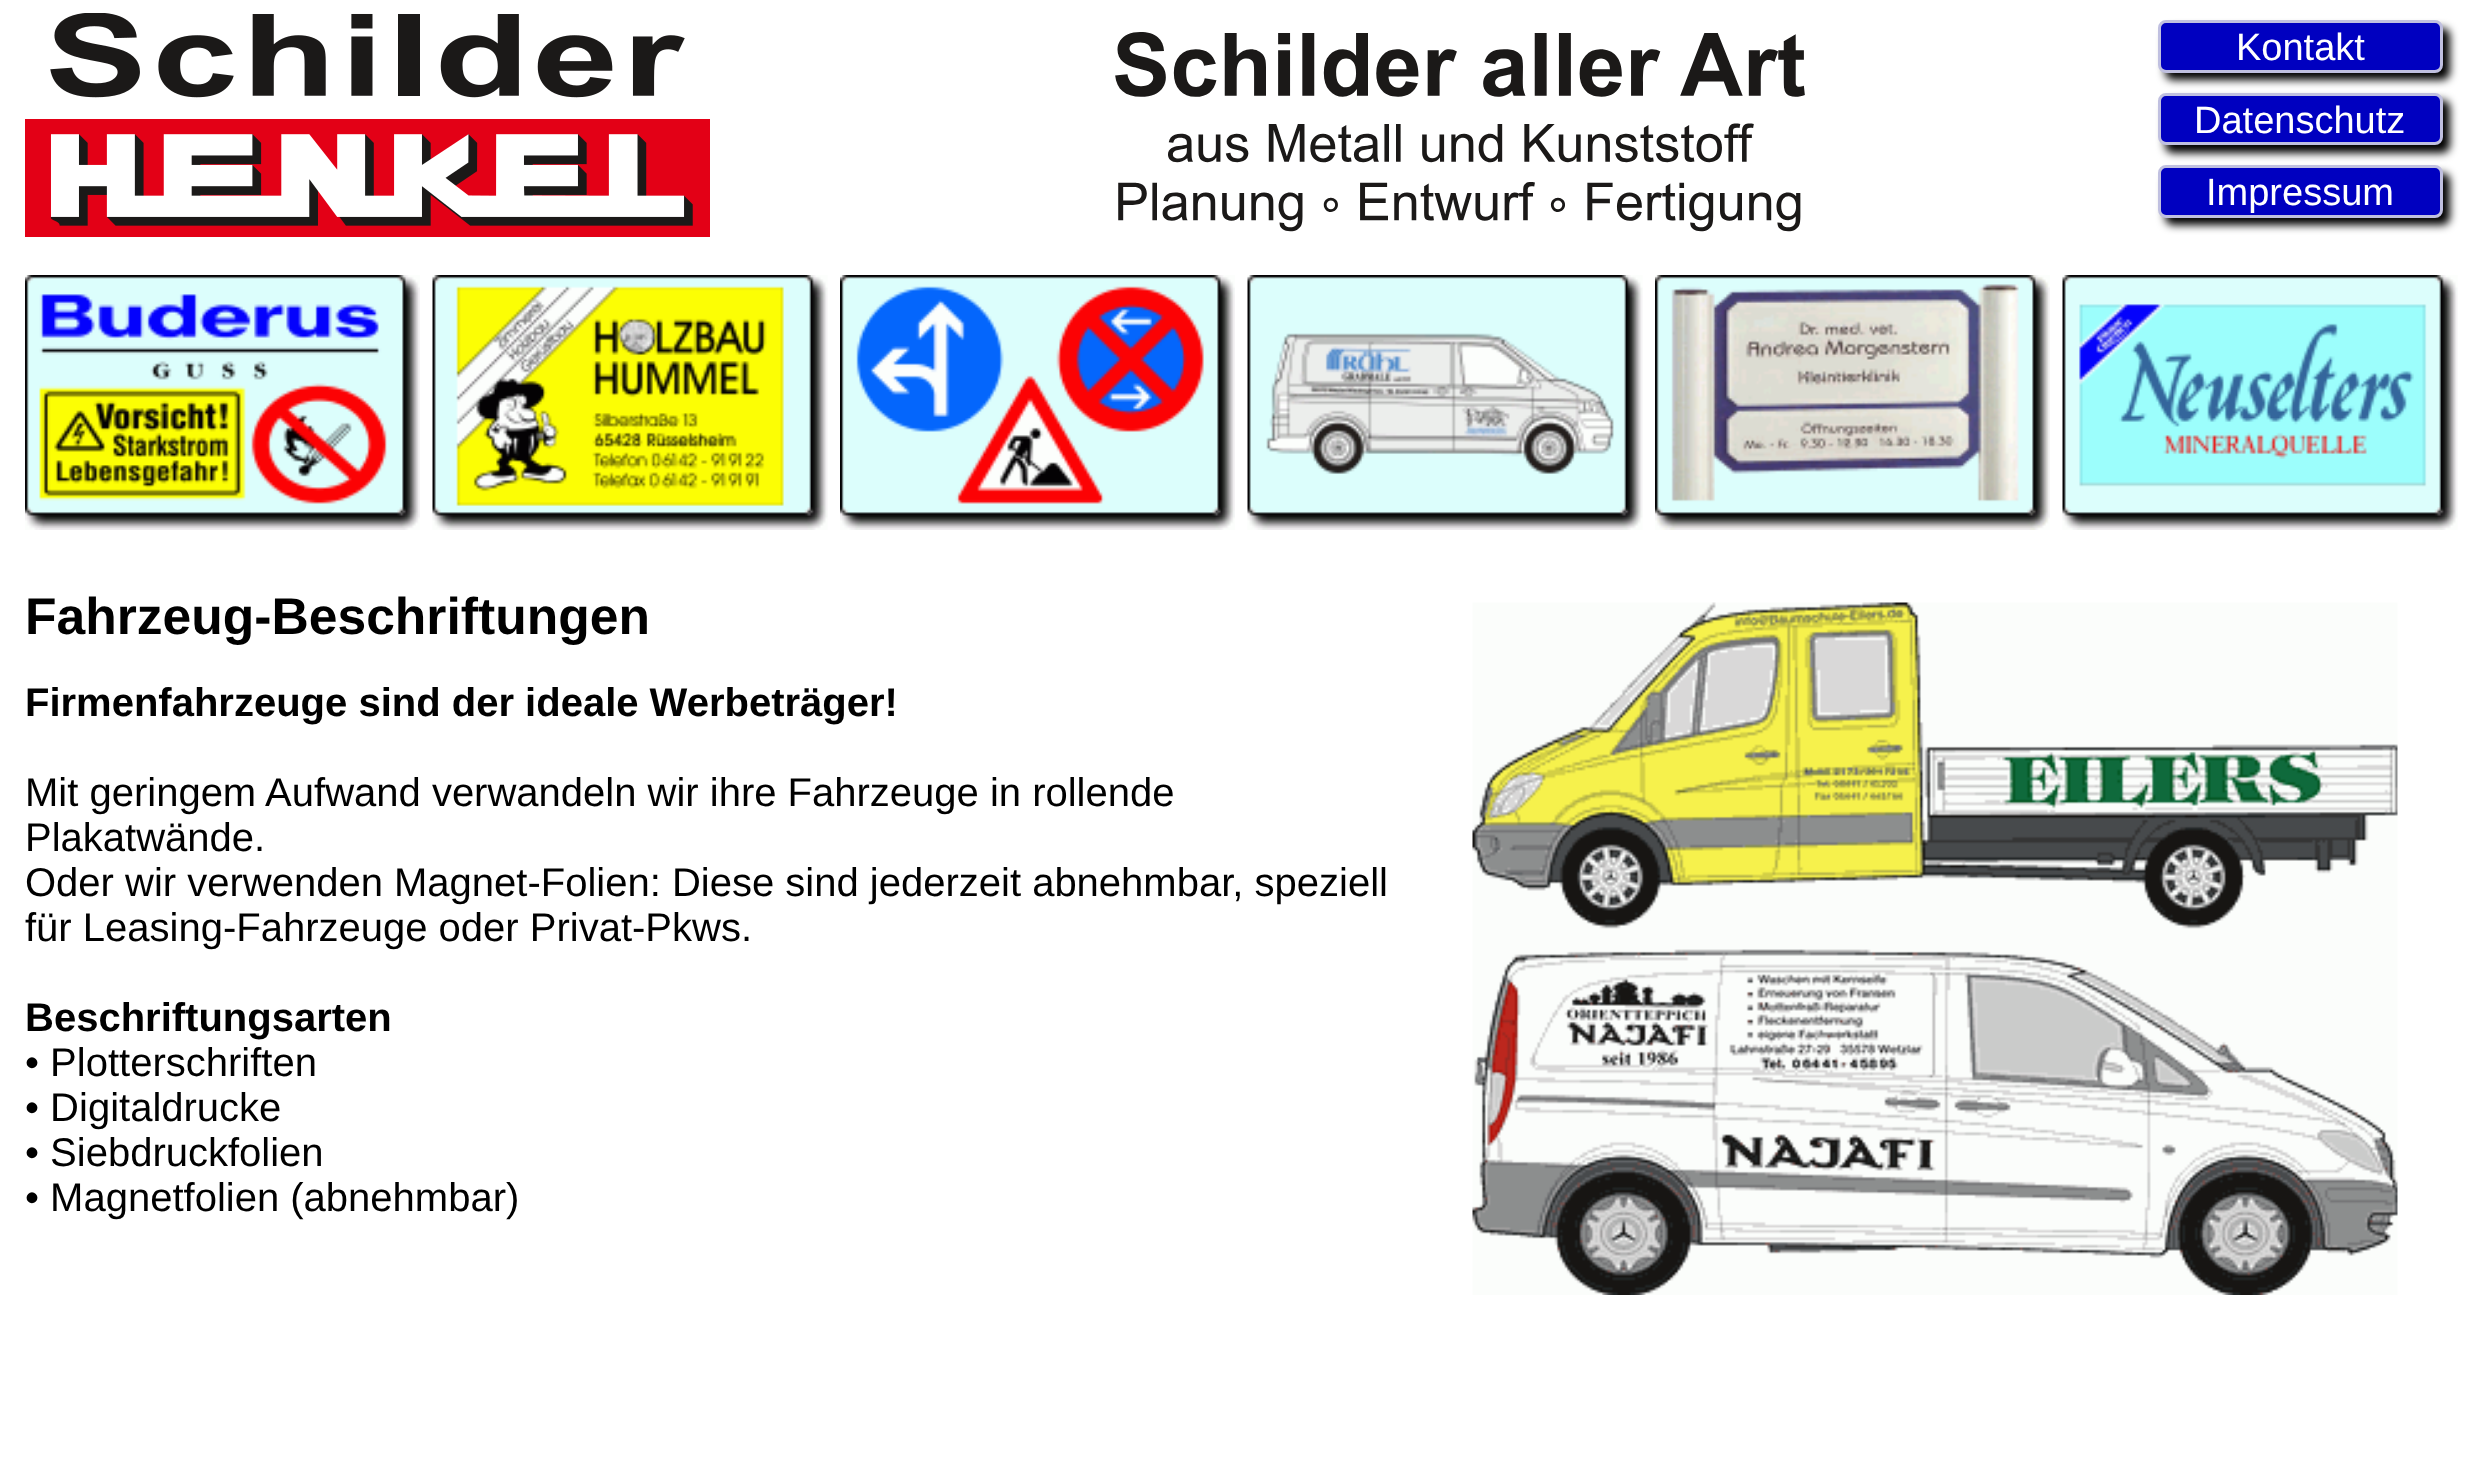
<svg xmlns="http://www.w3.org/2000/svg" width="2469" height="1461" viewBox="0 0 2469 1461">
  <style>
    .t1 { font: 38px Liberation Sans; fill: #fff; }
    .t2 { font: bold 51.6px Liberation Sans; fill: #000; }
    .t3 { font: bold 40px Liberation Sans; fill: #000; }
    .t4 { font: 40px Liberation Sans; fill: #000; }
  </style>
  <rect width="100%" height="100%" fill="#fff"/>
  <image x="25" y="13" width="685" height="224" href="images/1.png"/>
  <image x="1115" y="32" width="690" height="200" href="images/2.png"/>
  <rect x="2165" y="28" width="285" height="52" rx="8" fill="#000" filter="blur(4px)"/>
  <rect x="2159.5" y="21.5" width="282" height="50" rx="6.5" fill="#0000c0" stroke="#c0c0e0" stroke-width="3"/>
  <text x="2236" y="60" class="t1">Kontakt</text>
  <rect x="2165" y="100" width="285" height="53" rx="8" fill="#000" filter="blur(4px)"/>
  <rect x="2159.5" y="94.5" width="282" height="49" rx="6.5" fill="#0000c0" stroke="#c0c0e0" stroke-width="3"/>
  <text x="2194" y="133" class="t1">Datenschutz</text>
  <rect x="2165" y="173" width="285" height="52" rx="8" fill="#000" filter="blur(4px)"/>
  <rect x="2159.5" y="166.5" width="282" height="50" rx="6.5" fill="#0000c0" stroke="#c0c0e0" stroke-width="3"/>
  <text x="2206" y="205" class="t1">Impressum</text>
  <image x="25" y="275" width="395" height="255" href="images/3.png"/>
  <image x="432" y="275" width="396" height="255" href="images/4.png"/>
  <image x="840" y="275" width="395" height="255" href="images/5.png"/>
  <image x="1247" y="275" width="396" height="255" href="images/6.png"/>
  <image x="1655" y="275" width="395" height="255" href="images/7.png"/>
  <image x="2062" y="275" width="396" height="255" href="images/8.png"/>
  <text x="25" y="634" class="t2">Fahrzeug-Beschriftungen</text>
  <image x="1472" y="602" width="926" height="693" href="images/9.png"/>
  <text x="25" y="716" class="t3">Firmenfahrzeuge sind der ideale Werbeträger!</text>
  <text x="25" y="806" class="t4">Mit geringem Aufwand verwandeln wir ihre Fahrzeuge in rollende</text>
  <text x="25" y="851" class="t4">Plakatwände.</text>
  <text x="25" y="896" class="t4">Oder wir verwenden Magnet-Folien: Diese sind jederzeit abnehmbar, speziell</text>
  <text x="25" y="941" class="t4">für Leasing-Fahrzeuge oder Privat-Pkws.</text>
  <text x="25" y="1031" class="t3">Beschriftungsarten</text>
  <text x="25" y="1076" class="t4">• Plotterschriften</text>
  <text x="25" y="1121" class="t4">• Digitaldrucke</text>
  <text x="25" y="1166" class="t4">• Siebdruckfolien</text>
  <text x="25" y="1211" class="t4">• Magnetfolien (abnehmbar)</text>
</svg>
